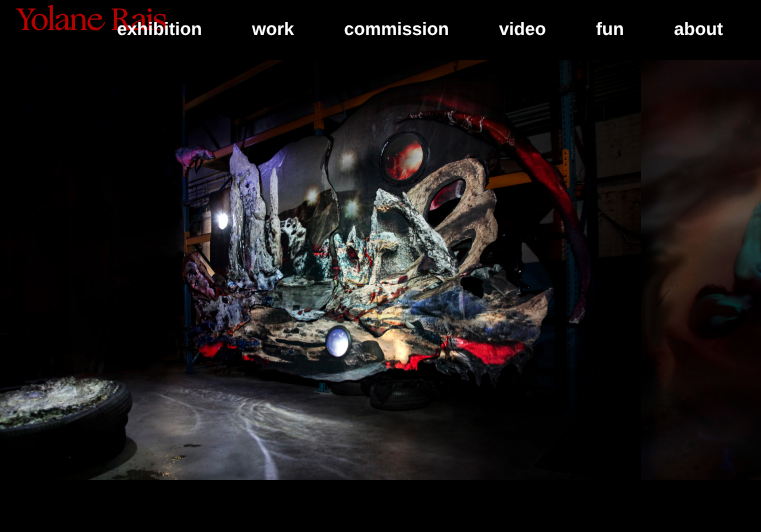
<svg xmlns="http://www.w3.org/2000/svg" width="761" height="532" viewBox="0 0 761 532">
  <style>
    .t1 { font: bold 30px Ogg; fill: #b50101; }
    .t2 { font: bold 18px Liberation Sans; fill: #fff; }
  </style>
  <rect width="100%" height="100%" fill="#000"/>
  <text x="16" y="30" class="t1">Yolane Rais</text>
  <text x="117" y="35" class="t2">exhibition</text>
  <text x="252" y="35" class="t2">work</text>
  <text x="344" y="35" class="t2">commission</text>
  <text x="499" y="35" class="t2">video</text>
  <text x="596" y="35" class="t2">fun</text>
  <text x="674" y="35" class="t2">about</text>
  <image x="0" y="60" width="641" height="420" href="images/1.png"/>
  <image x="641" y="60" width="120" height="420" href="images/2.png"/>
</svg>
